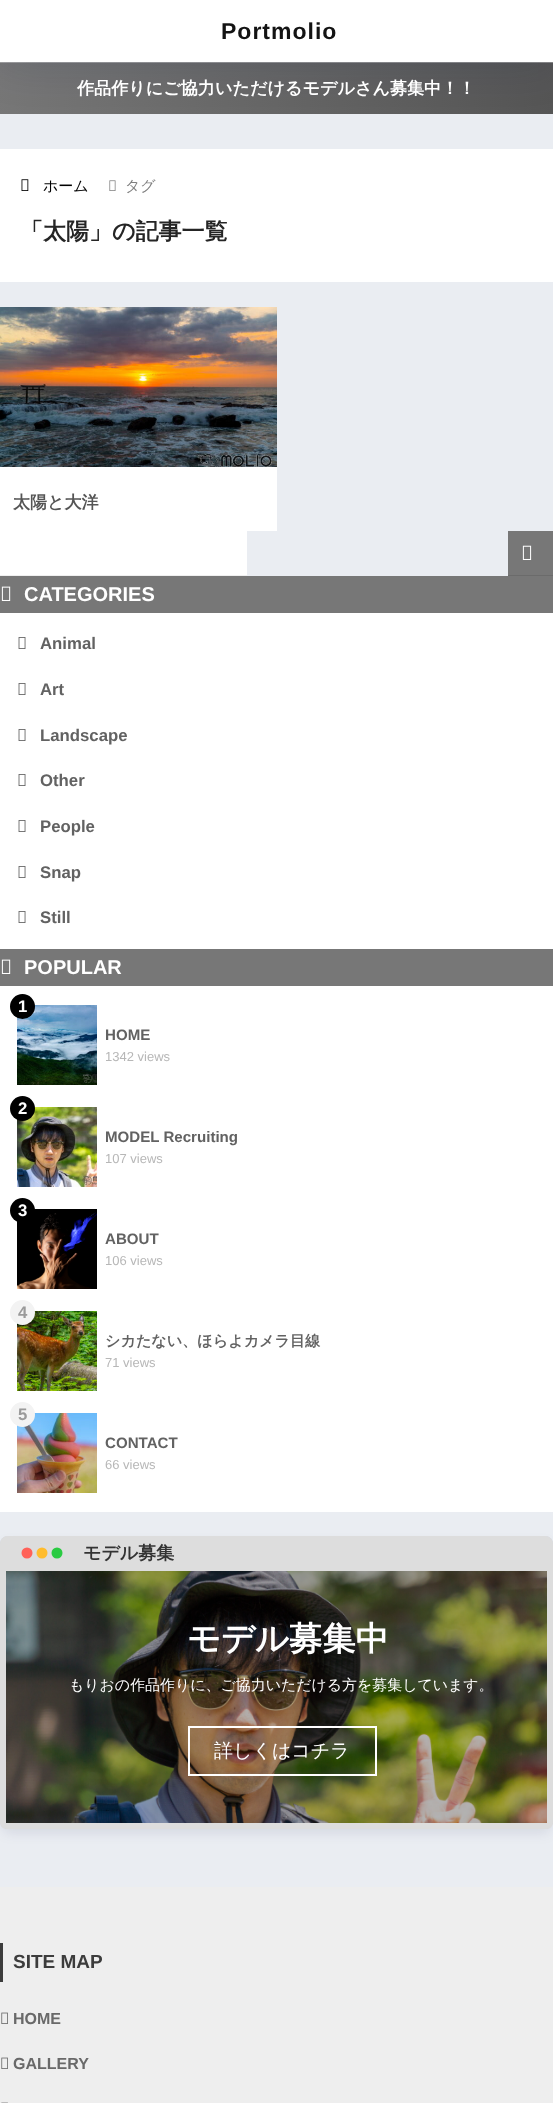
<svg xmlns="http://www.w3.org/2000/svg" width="553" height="2103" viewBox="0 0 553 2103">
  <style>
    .t1 { font: bold 23px Liberation Sans; letter-spacing: 1px; fill: #131313; }
    .t2 { font: bold 17.1px WenQuanYi Zen Hei; fill: #fff; }
    .t3 { font: 500 15px WenQuanYi Zen Hei; fill: #000; }
    .t4 { font: 500 15px WenQuanYi Zen Hei; fill: #808080; }
    .t5 { font: bold 23px WenQuanYi Zen Hei; fill: #252525; }
    .t6 { font: bold 17px WenQuanYi Zen Hei; fill: #555; }
    .t7 { font: bold 20px Liberation Sans; fill: #fff; }
    .t8 { font: bold 16.75px Liberation Sans; fill: #626262; }
    .t9 { font: bold 16.75px Liberation Sans; fill: #fff; }
    .t10 { font: bold 15.1px Liberation Sans; fill: #626262; }
    .t11 { font: 13px Liberation Sans; fill: #b7b7b7; }
    .t12 { font: bold 16.75px Liberation Sans; fill: #9a9a9a; }
    .t13 { font: bold 15.1px WenQuanYi Zen Hei; fill: #626262; }
    .t14 { font: bold 18px WenQuanYi Zen Hei; fill: #333; }
    .t15 { font: bold 33.25px WenQuanYi Zen Hei; fill: #fff; }
    .t16 { font: 500 14.95px WenQuanYi Zen Hei; fill: #fff; }
    .t17 { font: 500 19px WenQuanYi Zen Hei; fill: #fff; }
    .t18 { font: bold 19px Liberation Sans; fill: #3c3c3c; }
    .t19 { font: bold 16px Liberation Sans; fill: #696969; }
  </style>
  <defs>
    <linearGradient id="g1" gradientUnits="userSpaceOnUse" x1="-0.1" y1="13" x2="553" y2="62"><stop offset="0" stop-color="#a0a0a0"/><stop offset="1" stop-color="#888"/></linearGradient>
    <linearGradient id="g2" gradientUnits="userSpaceOnUse" x1="-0.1" y1="64" x2="553" y2="113"><stop offset="0" stop-color="#777"/><stop offset="1" stop-color="#555"/></linearGradient>
  </defs>
  <rect width="100%" height="100%" fill="#eaedf2"/>
  <rect x="0" y="62" width="553" height="1" fill="url(#g1)"/>
  <rect x="0" y="63" width="553" height="51" fill="url(#g2)"/>
  <rect x="0" y="0" width="553" height="62" fill="#000c4226" filter="blur(22.5px)"/>
  <rect x="0" y="0" width="553" height="62" fill="#fff"/>
  <text x="221" y="39" class="t1">Portmolio</text>
  <text x="77" y="94" class="t2">作品作りにご協力いただけるモデルさん募集中！！</text>
  <rect x="0" y="149" width="553" height="133" fill="#fff"/>
  <image x="21" y="179" width="8" height="12" href="images/1.png"/>
  <text x="43" y="191" class="t3">ホーム</text>
  <image x="109" y="180" width="7" height="11" href="images/2.png"/>
  <text x="125" y="191" class="t4">タグ</text>
  <text x="20" y="239" class="t5">「太陽」の記事一覧</text>
  <rect x="0" y="467" width="277" height="64" fill="#fff"/>
  <image x="0" y="307" width="277" height="160" href="images/3.png"/>
  <text x="13" y="508" class="t6">太陽と大洋</text>
  <rect x="0" y="531" width="247" height="44" fill="#fff"/>
  <rect x="0" y="575" width="247" height="1" fill="#efefef"/>
  <rect x="508" y="531" width="45" height="44" fill="#777"/>
  <rect x="508" y="575" width="45" height="1" fill="#6b6b6b"/>
  <image x="522" y="545" width="10" height="15" href="images/4.png"/>
  <rect x="0" y="576" width="553" height="37" fill="#777"/>
  <image x="1" y="586" width="10" height="15" href="images/5.png"/>
  <text x="24" y="601" class="t7">CATEGORIES</text>
  <rect x="0" y="613" width="553" height="336" fill="#fff"/>
  <image x="18" y="637" width="8" height="12" href="images/6.png"/>
  <text x="40" y="649" class="t8">Animal</text>
  <image x="18" y="683" width="8" height="12" href="images/6.png"/>
  <text x="40" y="695" class="t8">Art</text>
  <image x="18" y="729" width="8" height="12" href="images/6.png"/>
  <text x="40" y="741" class="t8">Landscape</text>
  <image x="18" y="774" width="8" height="12" href="images/6.png"/>
  <text x="40" y="786" class="t8">Other</text>
  <image x="18" y="820" width="8" height="12" href="images/6.png"/>
  <text x="40" y="832" class="t8">People</text>
  <image x="18" y="866" width="8" height="12" href="images/6.png"/>
  <text x="40" y="878" class="t8">Snap</text>
  <image x="18" y="911" width="8" height="12" href="images/6.png"/>
  <text x="40" y="923" class="t8">Still</text>
  <rect x="0" y="986" width="553" height="526" fill="#fff"/>
  <rect x="0" y="949" width="553" height="37" fill="#777"/>
  <image x="1" y="959" width="10" height="15" href="images/5.png"/>
  <text x="24" y="974" class="t7">POPULAR</text>
  <image x="17" y="1005" width="80" height="80" href="images/7.png"/>
  <circle cx="22.5" cy="1006.5" r="12.5" fill="#000"/>
  <text x="18" y="1012" class="t9">1</text>
  <text x="105" y="1040" class="t10">HOME</text>
  <text x="105" y="1061" class="t11">1342 views</text>
  <image x="17" y="1107" width="80" height="80" href="images/8.png"/>
  <circle cx="22.5" cy="1108.5" r="12.5" fill="#000"/>
  <text x="18" y="1114" class="t9">2</text>
  <text x="105" y="1142" class="t10">MODEL Recruiting</text>
  <text x="105" y="1163" class="t11">107 views</text>
  <image x="17" y="1209" width="80" height="80" href="images/9.png"/>
  <circle cx="22.5" cy="1210.5" r="12.5" fill="#000"/>
  <text x="18" y="1216" class="t9">3</text>
  <text x="105" y="1244" class="t10">ABOUT</text>
  <text x="105" y="1265" class="t11">106 views</text>
  <image x="17" y="1311" width="80" height="80" href="images/10.png"/>
  <circle cx="22.5" cy="1312.5" r="12.5" fill="#f3f3f3"/>
  <text x="18" y="1318" class="t12">4</text>
  <text x="105" y="1346" class="t13">シカたない、ほらよカメラ目線</text>
  <text x="105" y="1367" class="t11">71 views</text>
  <image x="17" y="1413" width="80" height="80" href="images/11.png"/>
  <circle cx="22.5" cy="1414.5" r="12.5" fill="#f3f3f3"/>
  <text x="18" y="1420" class="t12">5</text>
  <text x="105" y="1448" class="t10">CONTACT</text>
  <text x="105" y="1469" class="t11">66 views</text>
  <rect x="0" y="1536" width="553" height="293" rx="8" fill="#001e641a" filter="blur(0.5px)"/>
  <rect x="3" y="1545" width="547" height="287" rx="5" fill="#000c421a" filter="blur(6.5px)"/>
  <path d="M8 1536H545C549.5 1536 553 1539.5 553 1544V1570H0V1544C0 1539.5 3.5 1536 8 1536Z" fill="#ddd"/>
  <circle cx="27" cy="1553" r="5.5" fill="#ff6158"/>
  <circle cx="57" cy="1553" r="5.5" fill="#2acb42"/>
  <circle cx="42" cy="1553" r="5.5" fill="#ffbc2d"/>
  <text x="83" y="1559" class="t14">モデル募集</text>
  <path d="M3 1568H550V1823C550 1824.5 548.5 1826 547 1826H6C4.5 1826 3 1824.5 3 1823Z" fill="none" stroke="#ddd" stroke-width="6"/>
  <image x="6" y="1571" width="541" height="252" href="images/12.png"/>
  <text x="187" y="1650" class="t15">モデル募集中</text>
  <text x="69" y="1690" class="t16">もりおの作品作りに、ご協力いただける方を募集しています。</text>
  <rect x="189" y="1727" width="187" height="48" fill="none" stroke="#fff" stroke-width="2"/>
  <text x="214" y="1757" class="t17">詳しくはコチラ</text>
  <rect x="0" y="1887" width="553" height="216" fill="#eee"/>
  <rect x="0" y="1943" width="3" height="39" fill="#3c3c3c"/>
  <text x="13" y="1968" class="t18">SITE MAP</text>
  <image x="1" y="2012" width="7" height="12" href="images/13.png"/>
  <text x="13" y="2024" class="t19">HOME</text>
  <image x="1" y="2057" width="7" height="12" href="images/13.png"/>
  <text x="13" y="2069" class="t19">GALLERY</text>
  <image x="1" y="2102" width="7" height="1" href="images/14.png"/>
</svg>
